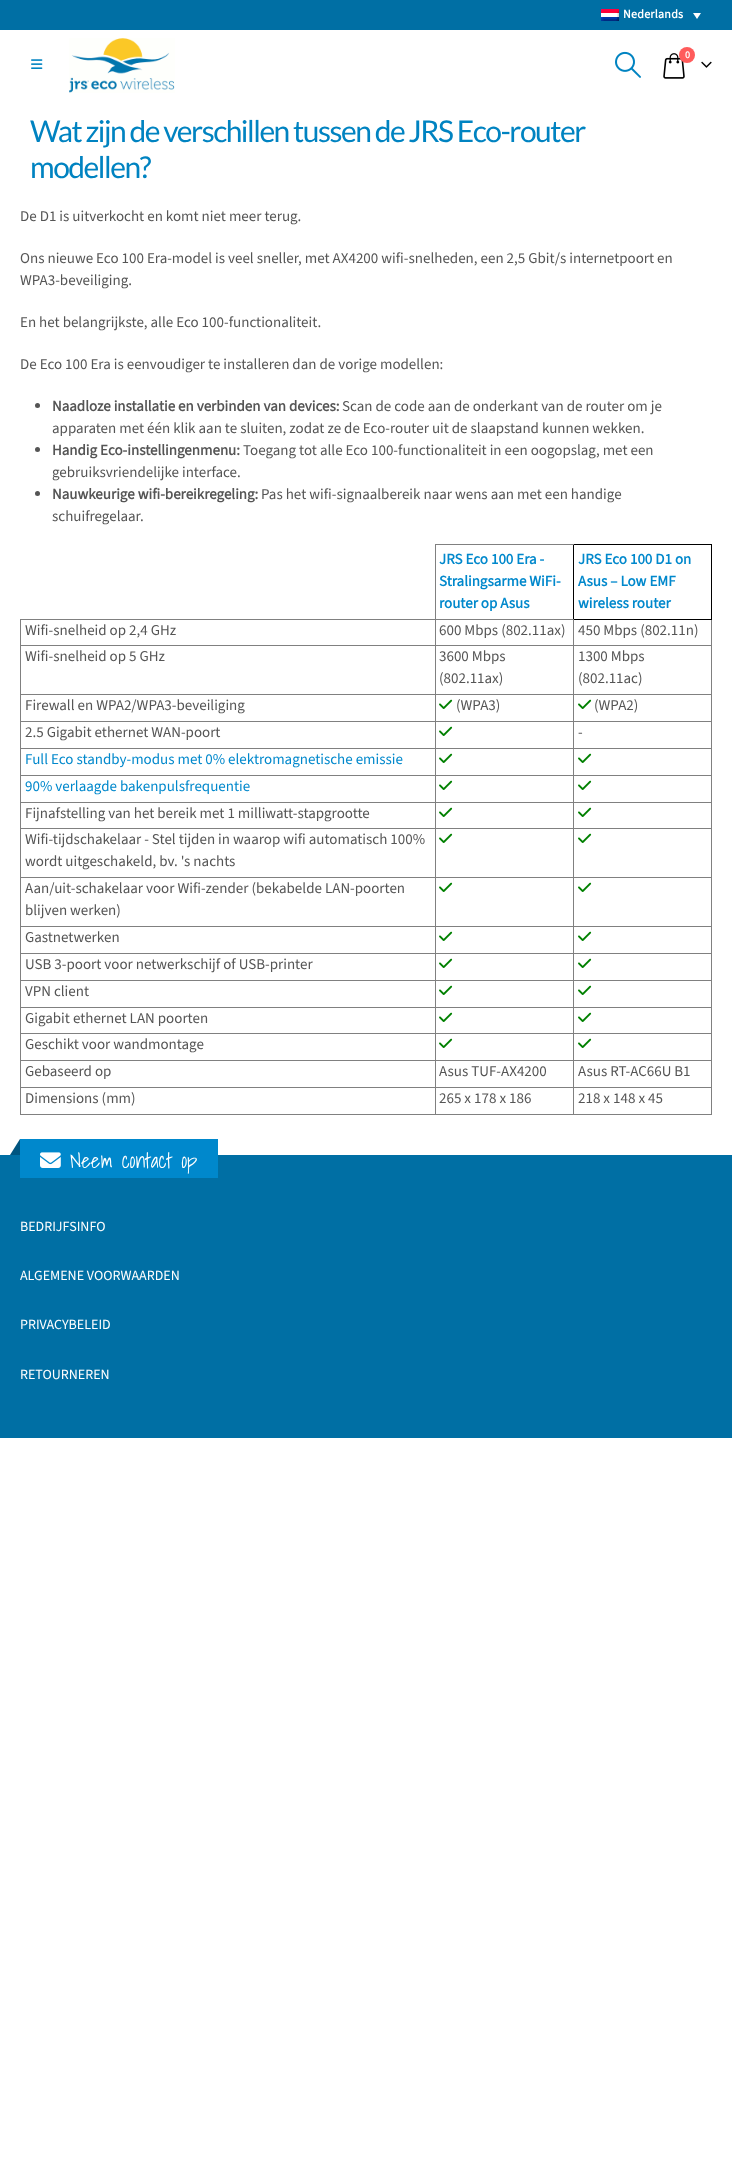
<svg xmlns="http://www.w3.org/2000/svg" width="732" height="2181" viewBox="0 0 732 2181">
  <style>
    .t1 { font: bold 12px 'Source Sans 3'; letter-spacing: 0.25px; fill: #fff; }
    .t2 { font: bold 10px 'Source Sans 3'; fill: #fff; }
    .t3 { font: 30px Lato; letter-spacing: -1.5px; fill: #0083c1; }
    .t4 { font: 15px 'Source Sans 3'; fill: #555; }
    .t5 { font: bold 15px 'Source Sans 3'; fill: #555; }
    .t6 { font: bold 15px 'Source Sans 3'; fill: #08c; }
    .t7 { font: 15px 'Source Sans 3'; fill: #08c; }
    .t8 { font: 300 20.75px Shadows Into Light; fill: #fff; }
    .t9 { font: 14px 'Source Sans 3'; fill: #fff; }
  </style>
  <rect width="100%" height="100%" fill="#fff"/>
  <rect x="0" y="0" width="732" height="30" fill="#006fa4"/>
  <image x="601" y="9" width="18" height="12" href="images/1.png"/>
  <text x="623" y="18" class="t1">Nederlands</text>
  <path d="M693 13H701L697 19Z" fill="#fff"/>
  <image x="31" y="59" width="12" height="10" href="images/2.png"/>
  <image x="69" y="38" width="106" height="55" href="images/3.png"/>
  <image x="615" y="51" width="26" height="27" href="images/4.png"/>
  <image x="663" y="53" width="22" height="26" href="images/5.png"/>
  <circle cx="687" cy="55" r="8" fill="#ff5b5b"/>
  <text x="685" y="58" class="t2">0</text>
  <image x="701" y="61" width="11" height="7" href="images/6.png"/>
  <text x="30" y="142" class="t3">Wat zijn de verschillen tussen de JRS Eco-router</text>
  <text x="30" y="178" class="t3">modellen?</text>
  <text x="20" y="221" class="t4">De D1 is uitverkocht en komt niet meer terug.</text>
  <text x="20" y="263" class="t4">Ons nieuwe Eco 100 Era-model is veel sneller, met AX4200 wifi-snelheden, een 2,5 Gbit/s internetpoort en</text>
  <text x="20" y="285" class="t4">WPA3-beveiliging.</text>
  <text x="20" y="327" class="t4">En het belangrijkste, alle Eco 100-functionaliteit.</text>
  <text x="20" y="369" class="t4">De Eco 100 Era is eenvoudiger te installeren dan de vorige modellen:</text>
  <circle cx="37.5" cy="405.5" r="2.5" fill="#555"/>
  <text x="52" y="411" class="t5">Naadloze installatie en verbinden van devices:</text>
  <text x="342" y="411" class="t4">Scan de code aan de onderkant van de router om je</text>
  <text x="52" y="433" class="t4">apparaten met één klik aan te sluiten, zodat ze de Eco-router uit de slaapstand kunnen wekken.</text>
  <circle cx="37.5" cy="449.5" r="2.5" fill="#555"/>
  <text x="52" y="455" class="t5">Handig Eco-instellingenmenu:</text>
  <text x="243" y="455" class="t4">Toegang tot alle Eco 100-functionaliteit in een oogopslag, met een</text>
  <text x="52" y="477" class="t4">gebruiksvriendelijke interface.</text>
  <circle cx="37.5" cy="493.5" r="2.5" fill="#555"/>
  <text x="52" y="499" class="t5">Nauwkeurige wifi-bereikregeling:</text>
  <text x="261" y="499" class="t4">Pas het wifi-signaalbereik naar wens aan met een handige</text>
  <text x="52" y="521" class="t4">schuifregelaar.</text>
  <rect x="573" y="544" width="139" height="1" fill="#000"/>
  <rect x="711" y="619" width="1" height="496" fill="#808080"/>
  <rect x="711" y="544" width="1" height="76" fill="#000"/>
  <rect x="573" y="1114" width="139" height="1" fill="#808080"/>
  <rect x="573" y="1087" width="1" height="28" fill="#808080"/>
  <rect x="573" y="1087" width="139" height="1" fill="#808080"/>
  <rect x="573" y="1060" width="1" height="28" fill="#808080"/>
  <rect x="573" y="1060" width="139" height="1" fill="#808080"/>
  <rect x="573" y="1033" width="1" height="28" fill="#808080"/>
  <rect x="573" y="1033" width="139" height="1" fill="#808080"/>
  <rect x="573" y="1007" width="1" height="27" fill="#808080"/>
  <rect x="573" y="1007" width="139" height="1" fill="#808080"/>
  <rect x="573" y="980" width="1" height="28" fill="#808080"/>
  <rect x="573" y="980" width="139" height="1" fill="#808080"/>
  <rect x="573" y="953" width="1" height="28" fill="#808080"/>
  <rect x="573" y="953" width="139" height="1" fill="#808080"/>
  <rect x="573" y="926" width="1" height="28" fill="#808080"/>
  <rect x="573" y="926" width="139" height="1" fill="#808080"/>
  <rect x="573" y="877" width="1" height="50" fill="#808080"/>
  <rect x="573" y="877" width="139" height="1" fill="#808080"/>
  <rect x="573" y="828" width="1" height="50" fill="#808080"/>
  <rect x="573" y="828" width="139" height="1" fill="#808080"/>
  <rect x="573" y="802" width="1" height="27" fill="#808080"/>
  <rect x="573" y="802" width="139" height="1" fill="#808080"/>
  <rect x="573" y="775" width="1" height="28" fill="#808080"/>
  <rect x="573" y="775" width="139" height="1" fill="#808080"/>
  <rect x="573" y="748" width="1" height="28" fill="#808080"/>
  <rect x="573" y="748" width="139" height="1" fill="#808080"/>
  <rect x="573" y="721" width="1" height="28" fill="#808080"/>
  <rect x="573" y="721" width="139" height="1" fill="#808080"/>
  <rect x="573" y="694" width="1" height="28" fill="#808080"/>
  <rect x="573" y="694" width="139" height="1" fill="#808080"/>
  <rect x="573" y="645" width="1" height="50" fill="#808080"/>
  <rect x="573" y="645" width="139" height="1" fill="#808080"/>
  <rect x="573" y="619" width="1" height="27" fill="#808080"/>
  <rect x="573" y="619" width="139" height="1" fill="#000"/>
  <rect x="573" y="544" width="1" height="76" fill="#000"/>
  <rect x="435" y="544" width="139" height="1" fill="#808080"/>
  <rect x="435" y="1114" width="139" height="1" fill="#808080"/>
  <rect x="435" y="1087" width="1" height="28" fill="#808080"/>
  <rect x="435" y="1087" width="139" height="1" fill="#808080"/>
  <rect x="435" y="1060" width="1" height="28" fill="#808080"/>
  <rect x="435" y="1060" width="139" height="1" fill="#808080"/>
  <rect x="435" y="1033" width="1" height="28" fill="#808080"/>
  <rect x="435" y="1033" width="139" height="1" fill="#808080"/>
  <rect x="435" y="1007" width="1" height="27" fill="#808080"/>
  <rect x="435" y="1007" width="139" height="1" fill="#808080"/>
  <rect x="435" y="980" width="1" height="28" fill="#808080"/>
  <rect x="435" y="980" width="139" height="1" fill="#808080"/>
  <rect x="435" y="953" width="1" height="28" fill="#808080"/>
  <rect x="435" y="953" width="139" height="1" fill="#808080"/>
  <rect x="435" y="926" width="1" height="28" fill="#808080"/>
  <rect x="435" y="926" width="139" height="1" fill="#808080"/>
  <rect x="435" y="877" width="1" height="50" fill="#808080"/>
  <rect x="435" y="877" width="139" height="1" fill="#808080"/>
  <rect x="435" y="828" width="1" height="50" fill="#808080"/>
  <rect x="435" y="828" width="139" height="1" fill="#808080"/>
  <rect x="435" y="802" width="1" height="27" fill="#808080"/>
  <rect x="435" y="802" width="139" height="1" fill="#808080"/>
  <rect x="435" y="775" width="1" height="28" fill="#808080"/>
  <rect x="435" y="775" width="139" height="1" fill="#808080"/>
  <rect x="435" y="748" width="1" height="28" fill="#808080"/>
  <rect x="435" y="748" width="139" height="1" fill="#808080"/>
  <rect x="435" y="721" width="1" height="28" fill="#808080"/>
  <rect x="435" y="721" width="139" height="1" fill="#808080"/>
  <rect x="435" y="694" width="1" height="28" fill="#808080"/>
  <rect x="435" y="694" width="139" height="1" fill="#808080"/>
  <rect x="435" y="645" width="1" height="50" fill="#808080"/>
  <rect x="435" y="645" width="139" height="1" fill="#808080"/>
  <rect x="435" y="619" width="1" height="27" fill="#808080"/>
  <rect x="435" y="619" width="139" height="1" fill="#808080"/>
  <rect x="435" y="544" width="1" height="76" fill="#808080"/>
  <text x="439" y="564" class="t6">JRS Eco 100 Era -</text>
  <text x="439" y="586" class="t6">Stralingsarme WiFi-</text>
  <text x="439" y="608" class="t6">router op Asus</text>
  <text x="578" y="564" class="t6">JRS Eco 100 D1 on</text>
  <text x="578" y="586" class="t6">Asus – Low EMF</text>
  <text x="578" y="608" class="t6">wireless router</text>
  <rect x="20" y="1114" width="416" height="1" fill="#808080"/>
  <rect x="20" y="1087" width="1" height="28" fill="#808080"/>
  <rect x="20" y="1087" width="416" height="1" fill="#808080"/>
  <rect x="20" y="1060" width="1" height="28" fill="#808080"/>
  <rect x="20" y="1060" width="416" height="1" fill="#808080"/>
  <rect x="20" y="1033" width="1" height="28" fill="#808080"/>
  <rect x="20" y="1033" width="416" height="1" fill="#808080"/>
  <rect x="20" y="1007" width="1" height="27" fill="#808080"/>
  <rect x="20" y="1007" width="416" height="1" fill="#808080"/>
  <rect x="20" y="980" width="1" height="28" fill="#808080"/>
  <rect x="20" y="980" width="416" height="1" fill="#808080"/>
  <rect x="20" y="953" width="1" height="28" fill="#808080"/>
  <rect x="20" y="953" width="416" height="1" fill="#808080"/>
  <rect x="20" y="926" width="1" height="28" fill="#808080"/>
  <rect x="20" y="926" width="416" height="1" fill="#808080"/>
  <rect x="20" y="877" width="1" height="50" fill="#808080"/>
  <rect x="20" y="877" width="416" height="1" fill="#808080"/>
  <rect x="20" y="828" width="1" height="50" fill="#808080"/>
  <rect x="20" y="828" width="416" height="1" fill="#808080"/>
  <rect x="20" y="802" width="1" height="27" fill="#808080"/>
  <rect x="20" y="802" width="416" height="1" fill="#808080"/>
  <rect x="20" y="775" width="1" height="28" fill="#808080"/>
  <rect x="20" y="775" width="416" height="1" fill="#808080"/>
  <rect x="20" y="748" width="1" height="28" fill="#808080"/>
  <rect x="20" y="748" width="416" height="1" fill="#808080"/>
  <rect x="20" y="721" width="1" height="28" fill="#808080"/>
  <rect x="20" y="721" width="416" height="1" fill="#808080"/>
  <rect x="20" y="694" width="1" height="28" fill="#808080"/>
  <rect x="20" y="694" width="416" height="1" fill="#808080"/>
  <rect x="20" y="645" width="1" height="50" fill="#808080"/>
  <rect x="20" y="645" width="416" height="1" fill="#808080"/>
  <rect x="20" y="619" width="1" height="27" fill="#808080"/>
  <rect x="20" y="619" width="416" height="1" fill="#808080"/>
  <text x="25" y="635" class="t4">Wifi-snelheid op 2,4 GHz</text>
  <text x="439" y="635" class="t4">600 Mbps (802.11ax)</text>
  <text x="578" y="635" class="t4">450 Mbps (802.11n)</text>
  <text x="25" y="661" class="t4">Wifi-snelheid op 5 GHz</text>
  <text x="439" y="661" class="t4">3600 Mbps</text>
  <text x="439" y="683" class="t4">(802.11ax)</text>
  <text x="578" y="661" class="t4">1300 Mbps</text>
  <text x="578" y="683" class="t4">(802.11ac)</text>
  <text x="25" y="710" class="t4">Firewall en WPA2/WPA3-beveiliging</text>
  <image x="439" y="699" width="14" height="10" href="images/7.png"/>
  <text x="456" y="710" class="t4">(WPA3)</text>
  <image x="578" y="699" width="14" height="10" href="images/7.png"/>
  <text x="594" y="710" class="t4">(WPA2)</text>
  <text x="25" y="737" class="t4">2.5 Gigabit ethernet WAN-poort</text>
  <image x="439" y="726" width="14" height="10" href="images/7.png"/>
  <text x="578" y="737" class="t4">-</text>
  <text x="25" y="764" class="t7">Full Eco standby-modus met 0% elektromagnetische emissie</text>
  <image x="439" y="753" width="14" height="10" href="images/7.png"/>
  <image x="578" y="753" width="14" height="10" href="images/7.png"/>
  <text x="25" y="791" class="t7">90% verlaagde bakenpulsfrequentie</text>
  <image x="439" y="780" width="14" height="10" href="images/7.png"/>
  <image x="578" y="780" width="14" height="10" href="images/7.png"/>
  <text x="25" y="818" class="t4">Fijnafstelling van het bereik met 1 milliwatt-stapgrootte</text>
  <image x="439" y="807" width="14" height="10" href="images/7.png"/>
  <image x="578" y="807" width="14" height="10" href="images/7.png"/>
  <text x="25" y="844" class="t4">Wifi-tijdschakelaar - Stel tijden in waarop wifi automatisch 100%</text>
  <text x="25" y="866" class="t4">wordt uitgeschakeld, bv. 's nachts</text>
  <image x="439" y="833" width="14" height="10" href="images/7.png"/>
  <image x="578" y="833" width="14" height="10" href="images/7.png"/>
  <text x="25" y="893" class="t4">Aan/uit-schakelaar voor Wifi-zender (bekabelde LAN-poorten</text>
  <text x="25" y="915" class="t4">blijven werken)</text>
  <image x="439" y="882" width="14" height="10" href="images/7.png"/>
  <image x="578" y="882" width="14" height="10" href="images/7.png"/>
  <text x="25" y="942" class="t4">Gastnetwerken</text>
  <image x="439" y="931" width="14" height="10" href="images/7.png"/>
  <image x="578" y="931" width="14" height="10" href="images/7.png"/>
  <text x="25" y="969" class="t4">USB 3-poort voor netwerkschijf of USB-printer</text>
  <image x="439" y="958" width="14" height="10" href="images/7.png"/>
  <image x="578" y="958" width="14" height="10" href="images/7.png"/>
  <text x="25" y="996" class="t4">VPN client</text>
  <image x="439" y="985" width="14" height="10" href="images/7.png"/>
  <image x="578" y="985" width="14" height="10" href="images/7.png"/>
  <text x="25" y="1023" class="t4">Gigabit ethernet LAN poorten</text>
  <image x="439" y="1012" width="14" height="10" href="images/7.png"/>
  <image x="578" y="1012" width="14" height="10" href="images/7.png"/>
  <text x="25" y="1049" class="t4">Geschikt voor wandmontage</text>
  <image x="439" y="1038" width="14" height="10" href="images/7.png"/>
  <image x="578" y="1038" width="14" height="10" href="images/7.png"/>
  <text x="25" y="1076" class="t4">Gebaseerd op</text>
  <text x="439" y="1076" class="t4">Asus TUF-AX4200</text>
  <text x="578" y="1076" class="t4">Asus RT-AC66U B1</text>
  <text x="25" y="1103" class="t4">Dimensions (mm)</text>
  <text x="439" y="1103" class="t4">265 x 178 x 186</text>
  <text x="578" y="1103" class="t4">218 x 148 x 45</text>
  <rect x="0" y="1155" width="732" height="283" fill="#006fa4"/>
  <rect x="20" y="1139" width="198" height="39" fill="#08c"/>
  <path d="M20 1139V1155H10Z" fill="#005580"/>
  <image x="40" y="1152" width="21" height="16" href="images/8.png"/>
  <text x="70" y="1168" class="t8">Neem contact op</text>
  <text x="20" y="1231" class="t9">BEDRIJFSINFO</text>
  <text x="20" y="1280" class="t9">ALGEMENE VOORWAARDEN</text>
  <text x="20" y="1329" class="t9">PRIVACYBELEID</text>
  <text x="20" y="1379" class="t9">RETOURNEREN</text>
</svg>
